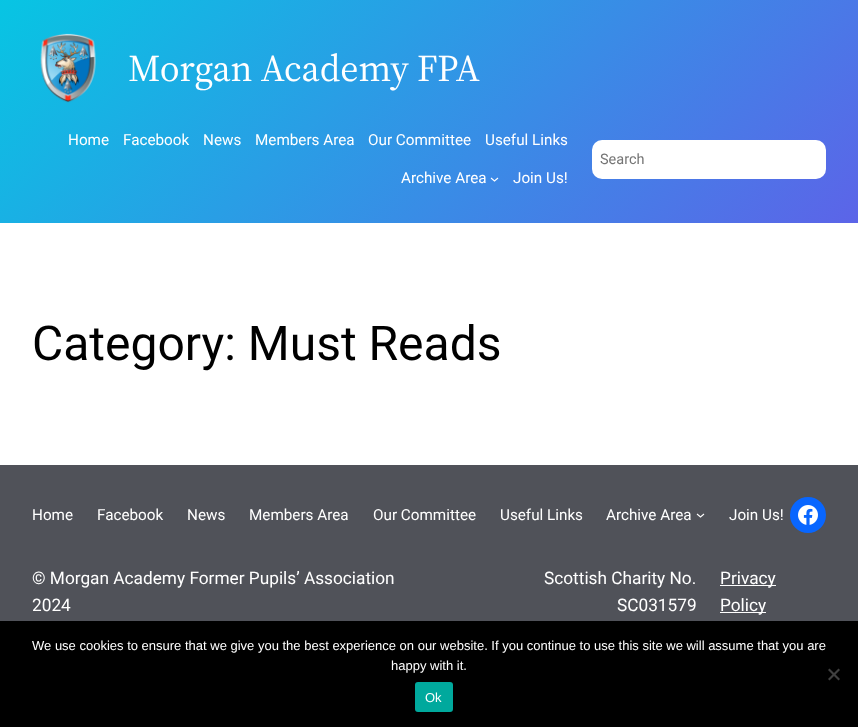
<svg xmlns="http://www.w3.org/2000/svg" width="858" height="727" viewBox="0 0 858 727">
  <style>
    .t1 { font: 37.6px 'Source Serif 4'; fill: #fff; }
    .t2 { font: 15.25px Roboto; fill: #fff; }
    .t3 { font: 14.5px Roboto; fill: #757575; }
    .t4 { font: 48px Roboto; fill: #000; }
    .t5 { font: 17.25px Roboto; fill: #fff; }
    .t6 { font: 13px Liberation Sans; fill: #fff; }
  </style>
  <defs>
    <linearGradient id="g1" gradientUnits="userSpaceOnUse" x1="159" y1="-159" x2="699" y2="382"><stop offset="0" stop-color="#07c5e3"/><stop offset="1" stop-color="#5c64e8"/></linearGradient>
  </defs>
  <rect width="100%" height="100%" fill="#fff"/>
  <rect x="0" y="0" width="858" height="223" fill="url(#g1)"/>
  <image x="40" y="33" width="56" height="70" href="images/1.png"/>
  <text x="128" y="81" class="t1">Morgan Academy FPA</text>
  <text x="68" y="145" class="t2">Home</text>
  <text x="123" y="145" class="t2">Facebook</text>
  <text x="203" y="145" class="t2">News</text>
  <text x="255" y="145" class="t2">Members Area</text>
  <text x="368" y="145" class="t2">Our Committee</text>
  <text x="485" y="145" class="t2">Useful Links</text>
  <text x="401" y="183" class="t2">Archive Area</text>
  <path d="M491 178L494.5 181L498 178" fill="none" stroke="#fff" stroke-width="1.1"/>
  <text x="513" y="183" class="t2">Join Us!</text>
  <rect x="592" y="140" width="234" height="39" rx="10" fill="#fff"/>
  <text x="600" y="164" class="t3">Search</text>
  <text x="32" y="360" class="t4">Category: Must Reads</text>
  <rect x="0" y="465" width="858" height="156" fill="#505259"/>
  <text x="32" y="520" class="t2">Home</text>
  <text x="97" y="520" class="t2">Facebook</text>
  <text x="187" y="520" class="t2">News</text>
  <text x="249" y="520" class="t2">Members Area</text>
  <text x="373" y="520" class="t2">Our Committee</text>
  <text x="500" y="520" class="t2">Useful Links</text>
  <text x="606" y="520" class="t2">Archive Area</text>
  <path d="M697 514L700.5 517L704 514" fill="none" stroke="#fff" stroke-width="1.1"/>
  <text x="729" y="520" class="t2">Join Us!</text>
  <circle cx="808" cy="515" r="18" fill="#0866ff"/>
  <image x="798" y="505" width="20" height="20" href="images/2.png"/>
  <text x="32" y="584" class="t5">© Morgan Academy Former Pupils’ Association</text>
  <text x="32" y="611" class="t5">2024</text>
  <text x="544" y="584" class="t5">Scottish Charity No.</text>
  <text x="617" y="611" class="t5">SC031579</text>
  <rect x="720" y="585" width="56" height="1" fill="#fff"/>
  <text x="720" y="584" class="t5">Privacy</text>
  <rect x="720" y="612" width="46" height="1" fill="#fff"/>
  <text x="720" y="611" class="t5">Policy</text>
  <rect x="0" y="621" width="858" height="106" fill="#000"/>
  <text x="32" y="650" class="t6">We use cookies to ensure that we give you the best experience on our website. If you continue to use this site we will assume that you are</text>
  <text x="391" y="670" class="t6">happy with it.</text>
  <path d="M838.5 668.5L840 670L829.5 680.5L828 679Z" fill="#404040"/>
  <path d="M828 670L829.5 668.5L840 679L838.5 680.5Z" fill="#404040"/>
  <rect x="415" y="682" width="38" height="30" rx="3" fill="#00a99d"/>
  <text x="425" y="702" class="t6">Ok</text>
</svg>
